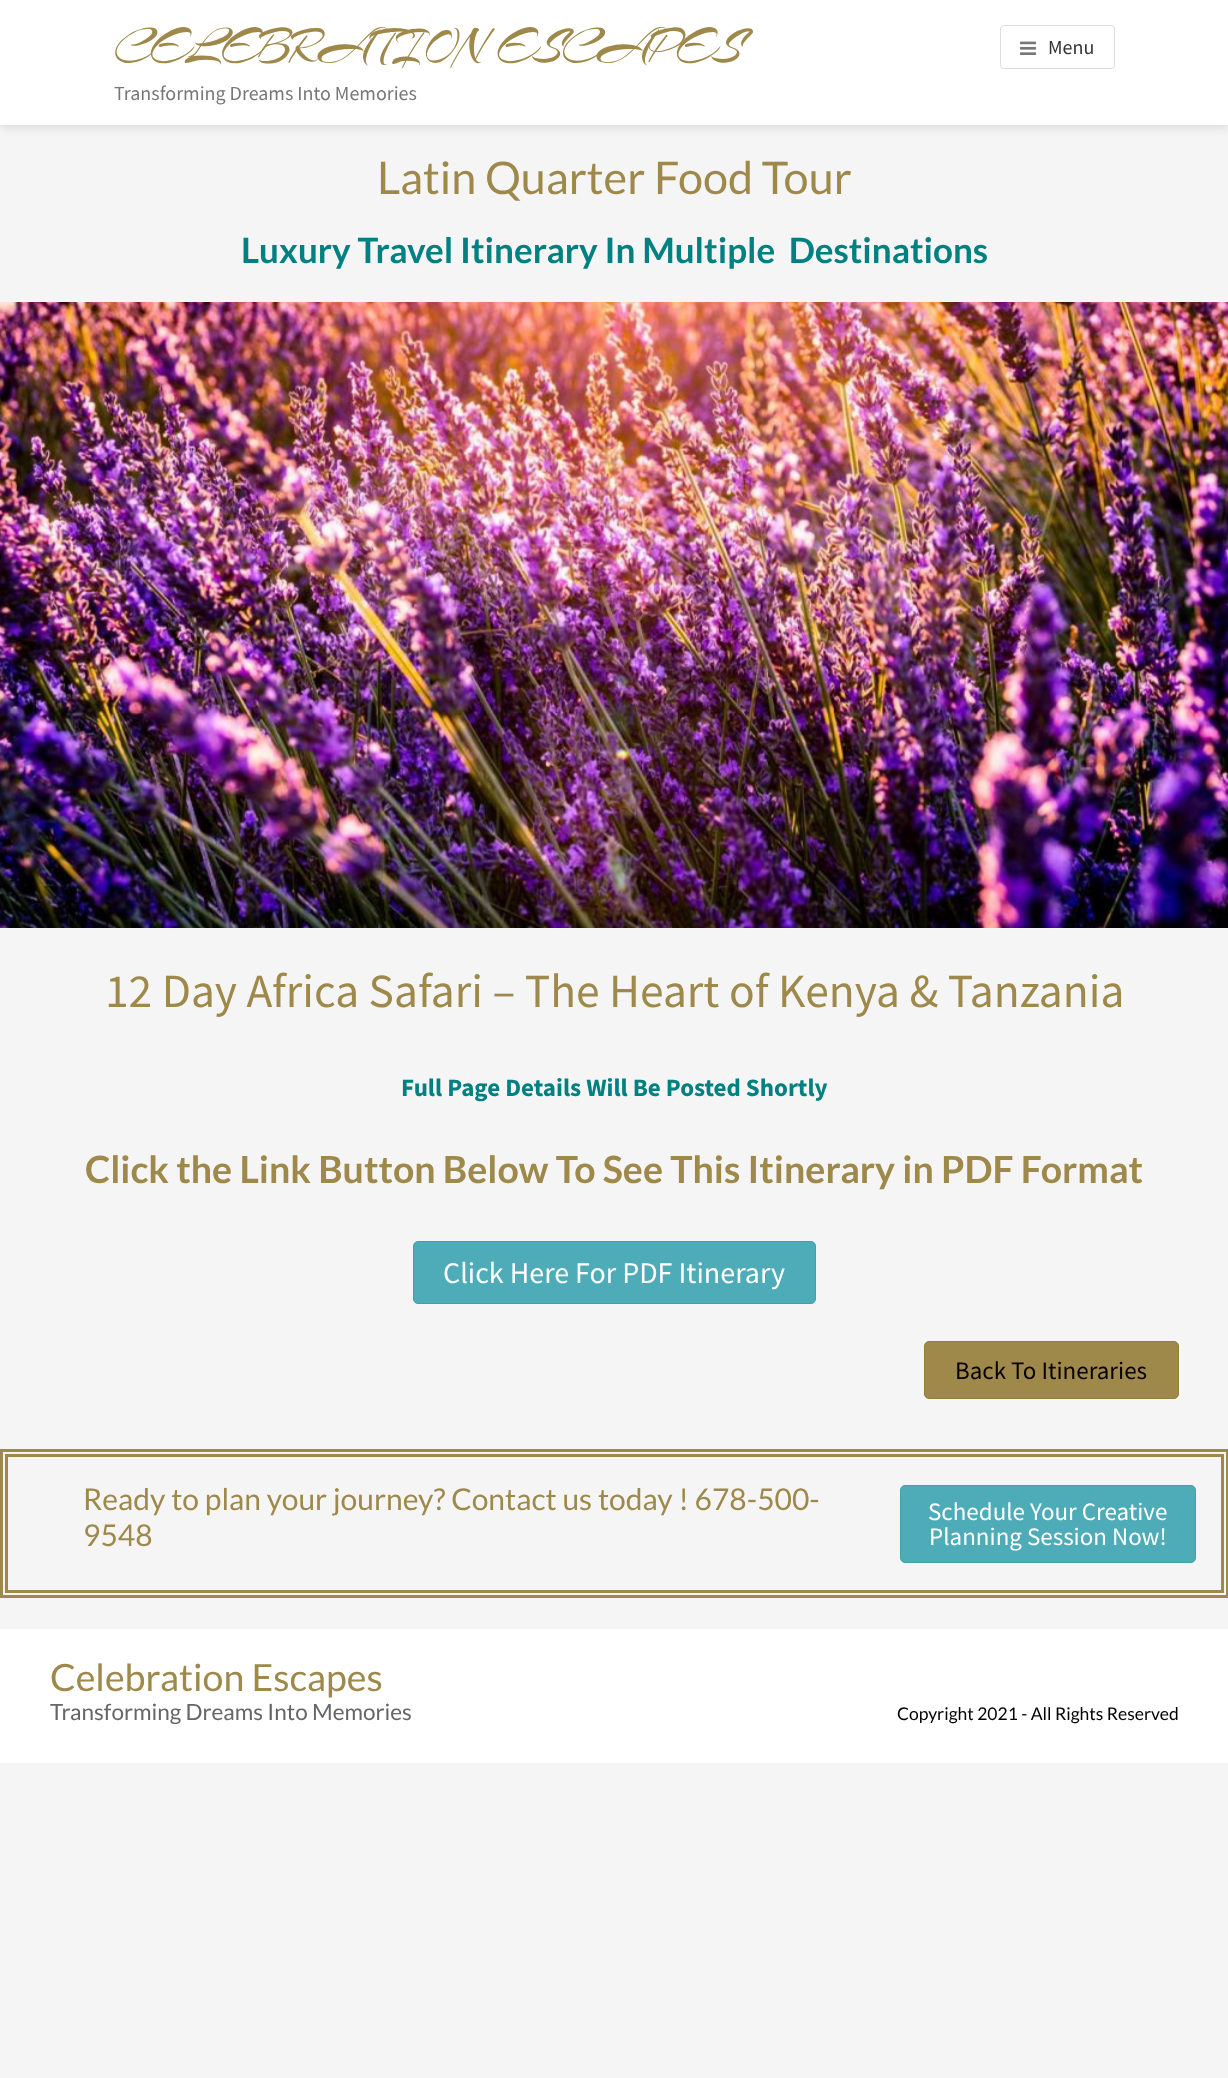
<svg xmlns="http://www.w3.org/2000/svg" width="1228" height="2078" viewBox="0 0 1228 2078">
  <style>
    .t1 { font: 50px Arizonia; fill: #9e894a; }
    .t2 { font: 20px Source Sans Pro; fill: #777; }
    .t3 { font: 20px Source Sans Pro; fill: #333; }
    .t4 { font: 45px Lato; fill: #9e894a; }
    .t5 { font: bold 35px Lato; fill: #008080; }
    .t6 { font: 47.5px Source Sans Pro; fill: #9e894a; }
    .t7 { font: bold 25px Source Sans Pro; fill: #008080; }
    .t8 { font: bold 37.5px Lato; fill: #9e894a; }
    .t9 { font: 30px Source Sans Pro; fill: #fff; }
    .t10 { font: 25px Source Sans Pro; fill: #070001; }
    .t11 { font: 30px Lato; fill: #9e894a; }
    .t12 { font: 25px Source Sans Pro; fill: #fff; }
    .t13 { font: 37.5px Lato; fill: #9e894a; }
    .t14 { font: 22.5px Lato; fill: #666; }
    .t15 { font: 17.5px Lato; fill: #000; }
  </style>
  <rect width="100%" height="100%" fill="#f5f5f5"/>
  <rect x="0" y="3" width="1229" height="125" fill="#0000001a" filter="blur(5px)"/>
  <rect x="0" y="0" width="1228" height="125" fill="#fff"/>
  <text x="114" y="61" class="t1">CELEBRATION ESCAPES</text>
  <text x="114" y="100" class="t2">Transforming Dreams Into Memories</text>
  <rect x="1000.5" y="25.5" width="114" height="43" rx="3.5" fill="none" stroke="#ddd"/>
  <image x="1020" y="41" width="17" height="14" href="images/1.png"/>
  <text x="1048" y="54" class="t3">Menu</text>
  <text x="377" y="194" class="t4">Latin Quarter Food Tour</text>
  <text x="241" y="263" class="t5" xml:space="preserve">Luxury Travel Itinerary In Multiple  Destinations</text>
  <image x="0" y="302" width="1228" height="626" href="images/2.png"/>
  <text x="105" y="1007" class="t6">12 Day Africa Safari – The Heart of Kenya &amp; Tanzania</text>
  <text x="401" y="1096" class="t7">Full Page Details Will Be Posted Shortly</text>
  <text x="85" y="1183" class="t8">Click the Link Button Below To See This Itinerary in PDF Format</text>
  <rect x="413.5" y="1241.5" width="402" height="62" rx="4.5" fill="#4dacb7" stroke="#41a0ab"/>
  <text x="443" y="1283" class="t9">Click Here For PDF Itinerary</text>
  <rect x="924.5" y="1341.5" width="254" height="57" rx="4.5" fill="#9e894a" stroke="#927d3e"/>
  <text x="955" y="1379" class="t10">Back To Itineraries</text>
  <rect x="1.5" y="1450.5" width="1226" height="146" fill="none" stroke="#9e894a" stroke-width="3"/>
  <rect x="6.5" y="1455.5" width="1216" height="136" fill="none" stroke="#9e894a" stroke-width="3"/>
  <text x="83" y="1510" class="t11">Ready to plan your journey? Contact us today ! 678-500-</text>
  <text x="83" y="1546" class="t11">9548</text>
  <rect x="900.5" y="1485.5" width="295" height="77" rx="4.5" fill="#4dacb7" stroke="#41a0ab"/>
  <text x="928" y="1520" class="t12">Schedule Your Creative</text>
  <text x="929" y="1545" class="t12">Planning Session Now!</text>
  <rect x="0" y="1629" width="1228" height="134" fill="#fff"/>
  <text x="50" y="1691" class="t13">Celebration Escapes</text>
  <text x="50" y="1720" class="t14">Transforming Dreams Into Memories</text>
  <text x="897" y="1720" class="t15">Copyright 2021 - All Rights Reserved</text>
</svg>
